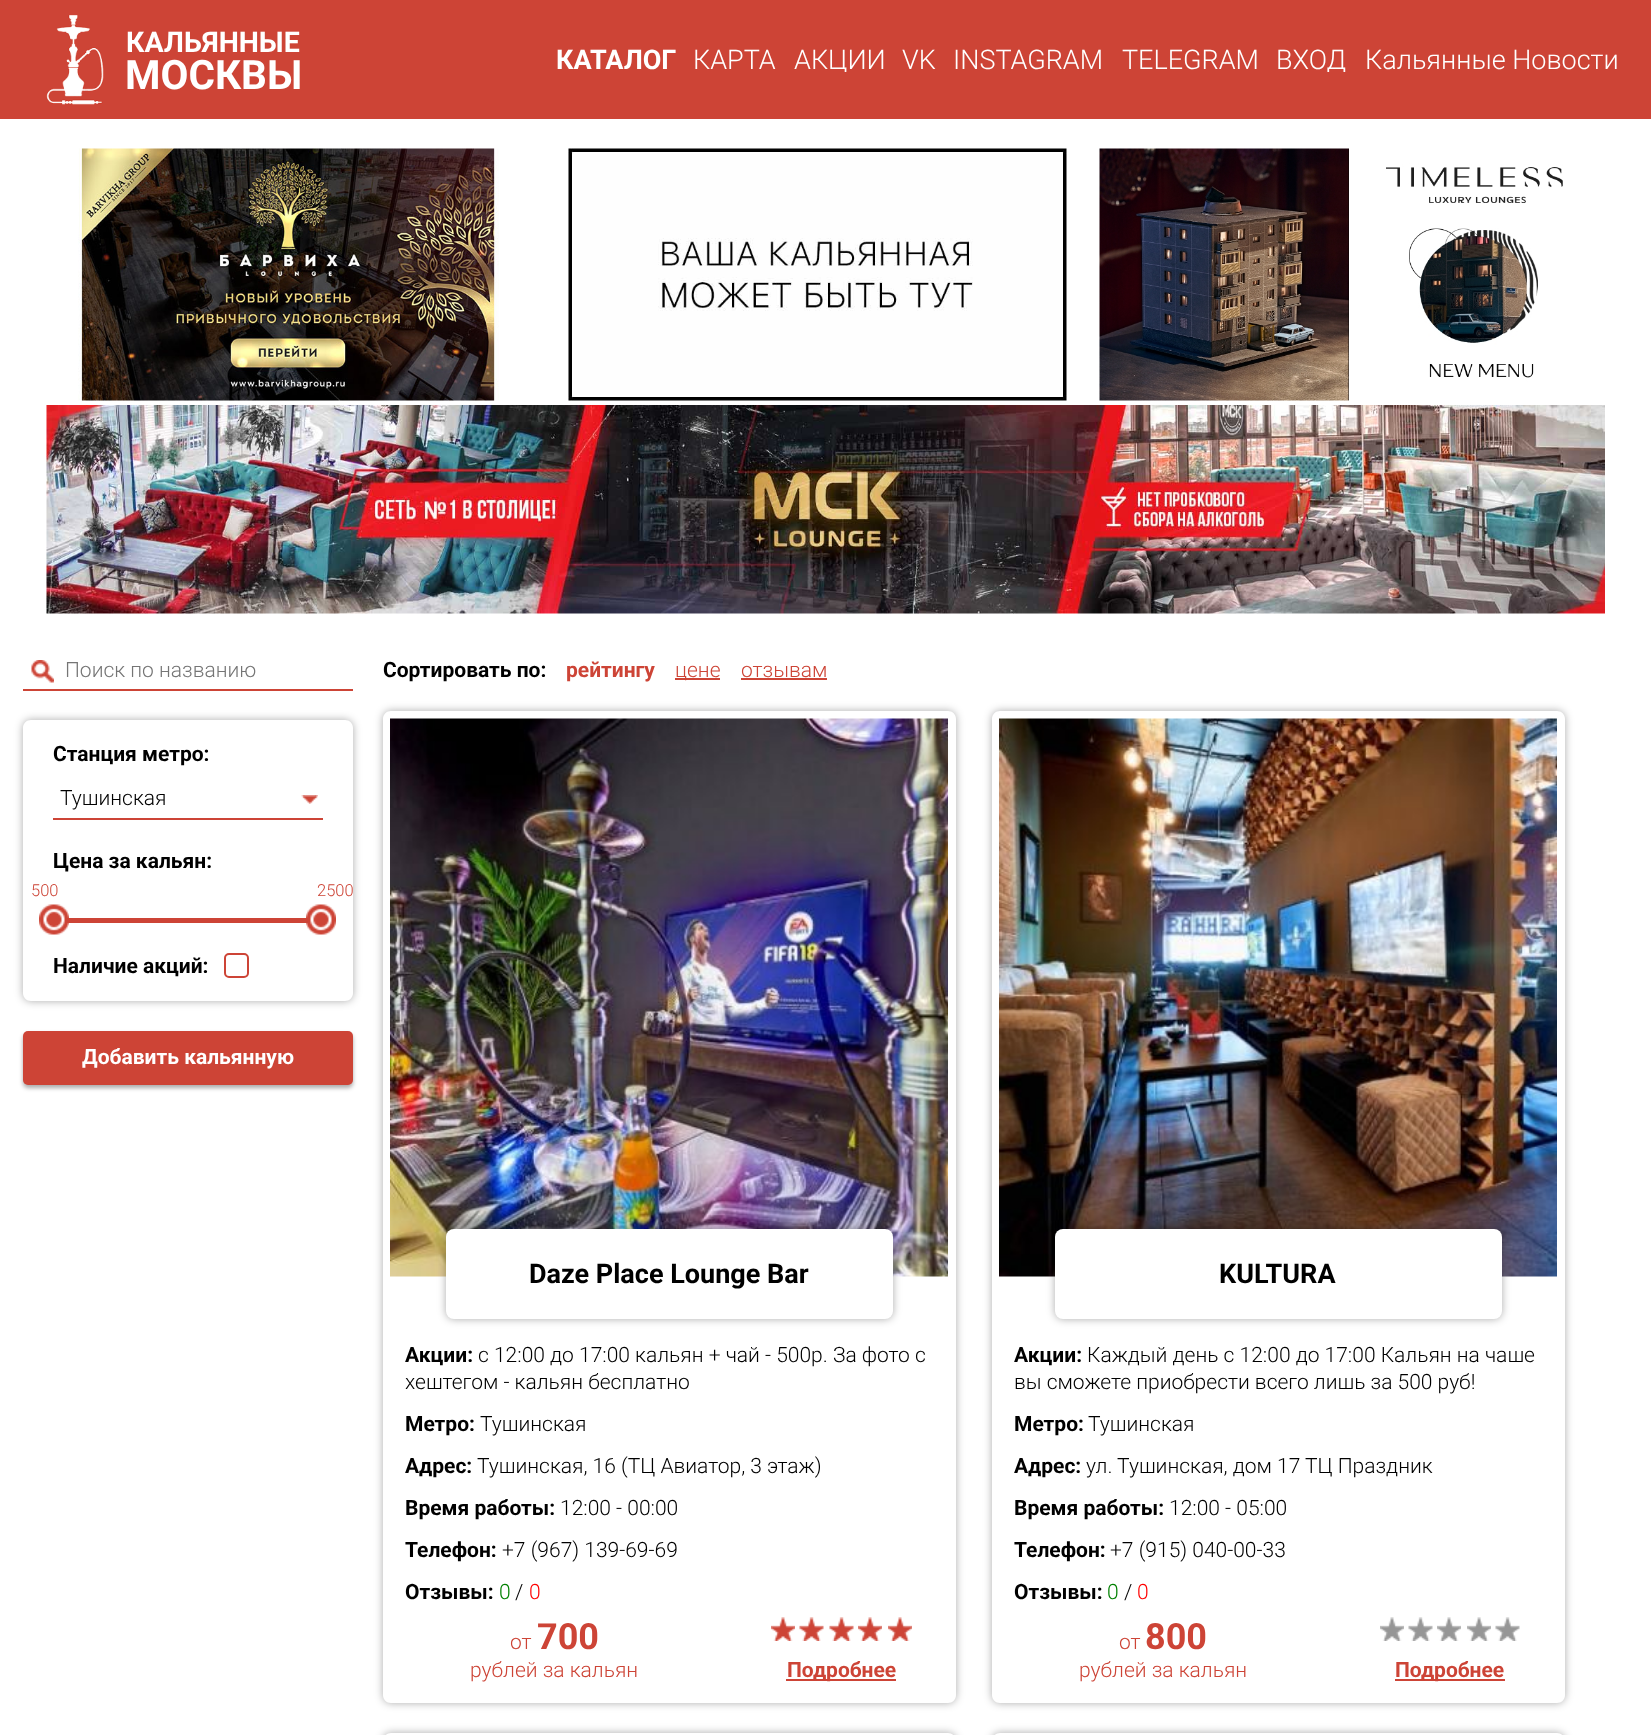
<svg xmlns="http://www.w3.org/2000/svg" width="1651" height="1735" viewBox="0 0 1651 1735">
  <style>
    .t1 { font: bold 28.5px Roboto; fill: #fff; }
    .t2 { font: bold 40.5px Roboto; fill: #fff; }
    .t3 { font: bold 27px Roboto; fill: #fff; }
    .t4 { font: 300 27px Roboto; fill: #fff; }
    .t5 { font: 300 21px Roboto; fill: #757575; }
    .t6 { font: bold 21px Roboto; fill: #000; }
    .t7 { font: 300 21px Roboto; fill: #000; }
    .t8 { font: 300 16.5px Roboto; fill: #cd4436; }
    .t9 { font: bold 21px Roboto; fill: #fff; }
    .t10 { font: bold 21px Roboto; fill: #cd4436; }
    .t11 { font: 300 21px Roboto; fill: #cd4436; }
    .t12 { font: bold 27px Roboto; fill: #000; }
    .t13 { font: 300 21px Roboto; fill: #008000; }
    .t14 { font: 300 21px Roboto; fill: #f00; }
    .t15 { font: bold 36px Roboto; fill: #cd4436; }
  </style>
  <defs>
    <clipPath id="clip1"><rect x="792" y="44" width="95" height="28"/></clipPath>
    <clipPath id="clip2"><rect x="1275" y="44" width="72" height="28"/></clipPath>
    <clipPath id="clip3"><path d="M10 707H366V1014H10ZM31 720H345C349.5 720 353 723.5 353 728V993C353 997.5 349.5 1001 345 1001H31C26.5 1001 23 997.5 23 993V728C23 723.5 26.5 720 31 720Z" clip-rule="evenodd"/></clipPath>
    <clipPath id="clip4"><path d="M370 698H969V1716H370ZM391 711H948C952.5 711 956 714.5 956 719V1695C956 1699.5 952.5 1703 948 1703H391C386.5 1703 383 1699.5 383 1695V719C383 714.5 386.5 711 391 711Z" clip-rule="evenodd"/></clipPath>
    <clipPath id="clip5"><path d="M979 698H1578V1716H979ZM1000 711H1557C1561.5 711 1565 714.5 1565 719V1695C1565 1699.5 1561.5 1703 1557 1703H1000C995.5 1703 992 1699.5 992 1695V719C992 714.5 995.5 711 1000 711Z" clip-rule="evenodd"/></clipPath>
    <clipPath id="clip6"><path d="M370 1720H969V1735H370ZM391 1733H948C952.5 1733 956 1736.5 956 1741V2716C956 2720.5 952.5 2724 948 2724H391C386.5 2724 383 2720.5 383 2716V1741C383 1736.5 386.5 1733 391 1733Z" clip-rule="evenodd"/></clipPath>
    <clipPath id="clip7"><path d="M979 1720H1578V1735H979ZM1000 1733H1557C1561.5 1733 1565 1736.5 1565 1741V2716C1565 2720.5 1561.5 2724 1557 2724H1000C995.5 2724 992 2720.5 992 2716V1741C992 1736.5 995.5 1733 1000 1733Z" clip-rule="evenodd"/></clipPath>
  </defs>
  <rect width="100%" height="100%" fill="#fff"/>
  <rect x="0" y="0" width="1651" height="119" fill="#cd4436"/>
  <image x="46" y="15" width="58" height="90" href="images/1.png"/>
  <text x="126" y="52" class="t1">КАЛЬЯННЫЕ</text>
  <text x="125" y="89" class="t2">МОСКВЫ</text>
  <text x="556" y="69" class="t3">КАТАЛОГ</text>
  <text x="693" y="69" class="t4">КАРТА</text>
  <g clip-path="url(#clip1)">
    <text x="794" y="69" class="t4">АКЦИИ</text>
  </g>
  <text x="902" y="69" class="t4">VK</text>
  <text x="953" y="69" class="t4">INSTAGRAM</text>
  <text x="1122" y="69" class="t4">TELEGRAM</text>
  <g clip-path="url(#clip2)">
    <text x="1276" y="69" class="t4">ВХОД</text>
  </g>
  <text x="1365" y="69" class="t4">Кальянные Новости</text>
  <image x="78" y="148" width="421" height="253" href="images/2.png"/>
  <image x="568" y="148" width="499" height="253" href="images/3.png"/>
  <image x="1099" y="148" width="464" height="253" href="images/4.png"/>
  <image x="46" y="405" width="1559" height="209" href="images/5.png"/>
  <image x="31" y="660" width="23" height="23" href="images/6.png"/>
  <rect x="23" y="689" width="330" height="2" fill="#cd4436"/>
  <text x="65" y="677" class="t5">Поиск по названию</text>
  <g clip-path="url(#clip3)">
    <rect x="23" y="720" width="330" height="281" rx="8" fill="#00000054" filter="blur(4px)"/>
  </g>
  <text x="53" y="761" class="t6">Станция метро:</text>
  <image x="301" y="795" width="17" height="9" href="images/7.png"/>
  <rect x="53" y="818" width="270" height="2" fill="#cd4436"/>
  <text x="60" y="805" class="t7">Тушинская</text>
  <text x="53" y="868" class="t6">Цена за кальян:</text>
  <rect x="67" y="920" width="241" height="1" fill="#cd4436"/>
  <rect x="54" y="919" width="268" height="3" fill="none" stroke="#cd4436" stroke-width="2"/>
  <image x="39" y="904" width="30" height="31" href="images/8.png"/>
  <text x="31" y="896" class="t8">500</text>
  <image x="306" y="904" width="30" height="31" href="images/9.png"/>
  <text x="317" y="896" class="t8">2500</text>
  <text x="53" y="973" class="t6">Наличие акций:</text>
  <rect x="225" y="954" width="23" height="23" rx="4" fill="none" stroke="#cd4436" stroke-width="2"/>
  <rect x="23" y="1034" width="330" height="54" rx="5" fill="#00000054" filter="blur(2px)"/>
  <rect x="23" y="1031" width="330" height="54" rx="5" fill="#cd4436"/>
  <text x="82" y="1064" class="t9">Добавить кальянную</text>
  <text x="383" y="677" class="t6">Сортировать по:</text>
  <text x="566" y="677" class="t10">рейтингу</text>
  <rect x="675" y="678" width="45" height="2" fill="#cd4436"/>
  <text x="675" y="677" class="t11">цене</text>
  <text x="741" y="677" class="t11">отзывам</text>
  <rect x="741" y="678" width="86" height="2" fill="#cd4436"/>
  <g clip-path="url(#clip4)">
    <rect x="383" y="711" width="573" height="992" rx="8" fill="#00000054" filter="blur(4px)"/>
  </g>
  <image x="390" y="718" width="558" height="559" href="images/10.png"/>
  <rect x="446" y="1229" width="447" height="90" rx="8" fill="#00000054" filter="blur(4px)"/>
  <rect x="446" y="1229" width="447" height="90" rx="8" fill="#fff"/>
  <text x="529" y="1283" class="t12">Daze Place Lounge Bar</text>
  <text x="405" y="1362" class="t6">Акции:</text>
  <text x="478" y="1362" class="t7">с 12:00 до 17:00 кальян + чай - 500р. За фото с</text>
  <text x="405" y="1389" class="t7">хештегом - кальян бесплатно</text>
  <text x="405" y="1431" class="t6">Метро:</text>
  <text x="480" y="1431" class="t7">Тушинская</text>
  <text x="405" y="1473" class="t6">Адрес:</text>
  <text x="477" y="1473" class="t7">Тушинская, 16 (ТЦ Авиатор, 3 этаж)</text>
  <text x="405" y="1515" class="t6">Время работы:</text>
  <text x="560" y="1515" class="t7">12:00 - 00:00</text>
  <text x="405" y="1557" class="t6">Телефон:</text>
  <text x="502" y="1557" class="t7">+7 (967) 139-69-69</text>
  <text x="405" y="1599" class="t6">Отзывы:</text>
  <text x="499" y="1599" class="t13">0</text>
  <text x="515" y="1599" class="t7">/</text>
  <text x="529" y="1599" class="t14">0</text>
  <text x="510" y="1649" class="t11">от</text>
  <text x="537" y="1649" class="t15">700</text>
  <text x="470" y="1677" class="t11">рублей за кальян</text>
  <image x="771" y="1617" width="24" height="24" href="images/11.png"/>
  <image x="799" y="1617" width="25" height="24" href="images/12.png"/>
  <image x="829" y="1617" width="25" height="24" href="images/12.png"/>
  <image x="858" y="1617" width="24" height="24" href="images/11.png"/>
  <image x="888" y="1617" width="24" height="24" href="images/11.png"/>
  <rect x="786" y="1679" width="110" height="2" fill="#cd4436"/>
  <text x="787" y="1677" class="t10">Подробнее</text>
  <g clip-path="url(#clip5)">
    <rect x="992" y="711" width="573" height="992" rx="8" fill="#00000054" filter="blur(4px)"/>
  </g>
  <image x="999" y="718" width="558" height="559" href="images/13.png"/>
  <rect x="1055" y="1229" width="447" height="90" rx="8" fill="#00000054" filter="blur(4px)"/>
  <rect x="1055" y="1229" width="447" height="90" rx="8" fill="#fff"/>
  <text x="1219" y="1283" class="t12">KULTURA</text>
  <text x="1014" y="1362" class="t6">Акции:</text>
  <text x="1087" y="1362" class="t7">Каждый день с 12:00 до 17:00 Кальян на чаше</text>
  <text x="1014" y="1389" class="t7">вы сможете приобрести всего лишь за 500 руб!</text>
  <text x="1014" y="1431" class="t6">Метро:</text>
  <text x="1088" y="1431" class="t7">Тушинская</text>
  <text x="1014" y="1473" class="t6">Адрес:</text>
  <text x="1086" y="1473" class="t7">ул. Тушинская, дом 17 ТЦ Праздник</text>
  <text x="1014" y="1515" class="t6">Время работы:</text>
  <text x="1169" y="1515" class="t7">12:00 - 05:00</text>
  <text x="1014" y="1557" class="t6">Телефон:</text>
  <text x="1110" y="1557" class="t7">+7 (915) 040-00-33</text>
  <text x="1014" y="1599" class="t6">Отзывы:</text>
  <text x="1107" y="1599" class="t13">0</text>
  <text x="1124" y="1599" class="t7">/</text>
  <text x="1137" y="1599" class="t14">0</text>
  <text x="1119" y="1649" class="t11">от</text>
  <text x="1145" y="1649" class="t15">800</text>
  <text x="1079" y="1677" class="t11">рублей за кальян</text>
  <image x="1380" y="1617" width="24" height="24" href="images/14.png"/>
  <image x="1408" y="1617" width="25" height="24" href="images/15.png"/>
  <image x="1437" y="1617" width="24" height="24" href="images/14.png"/>
  <image x="1467" y="1617" width="24" height="24" href="images/16.png"/>
  <image x="1495" y="1617" width="25" height="24" href="images/15.png"/>
  <rect x="1395" y="1679" width="110" height="2" fill="#cd4436"/>
  <text x="1395" y="1677" class="t10">Подробнее</text>
  <g clip-path="url(#clip6)">
    <rect x="383" y="1733" width="573" height="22" rx="8" fill="#00000054" filter="blur(4px)"/>
  </g>
  <g clip-path="url(#clip7)">
    <rect x="992" y="1733" width="573" height="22" rx="8" fill="#00000054" filter="blur(4px)"/>
  </g>
</svg>
